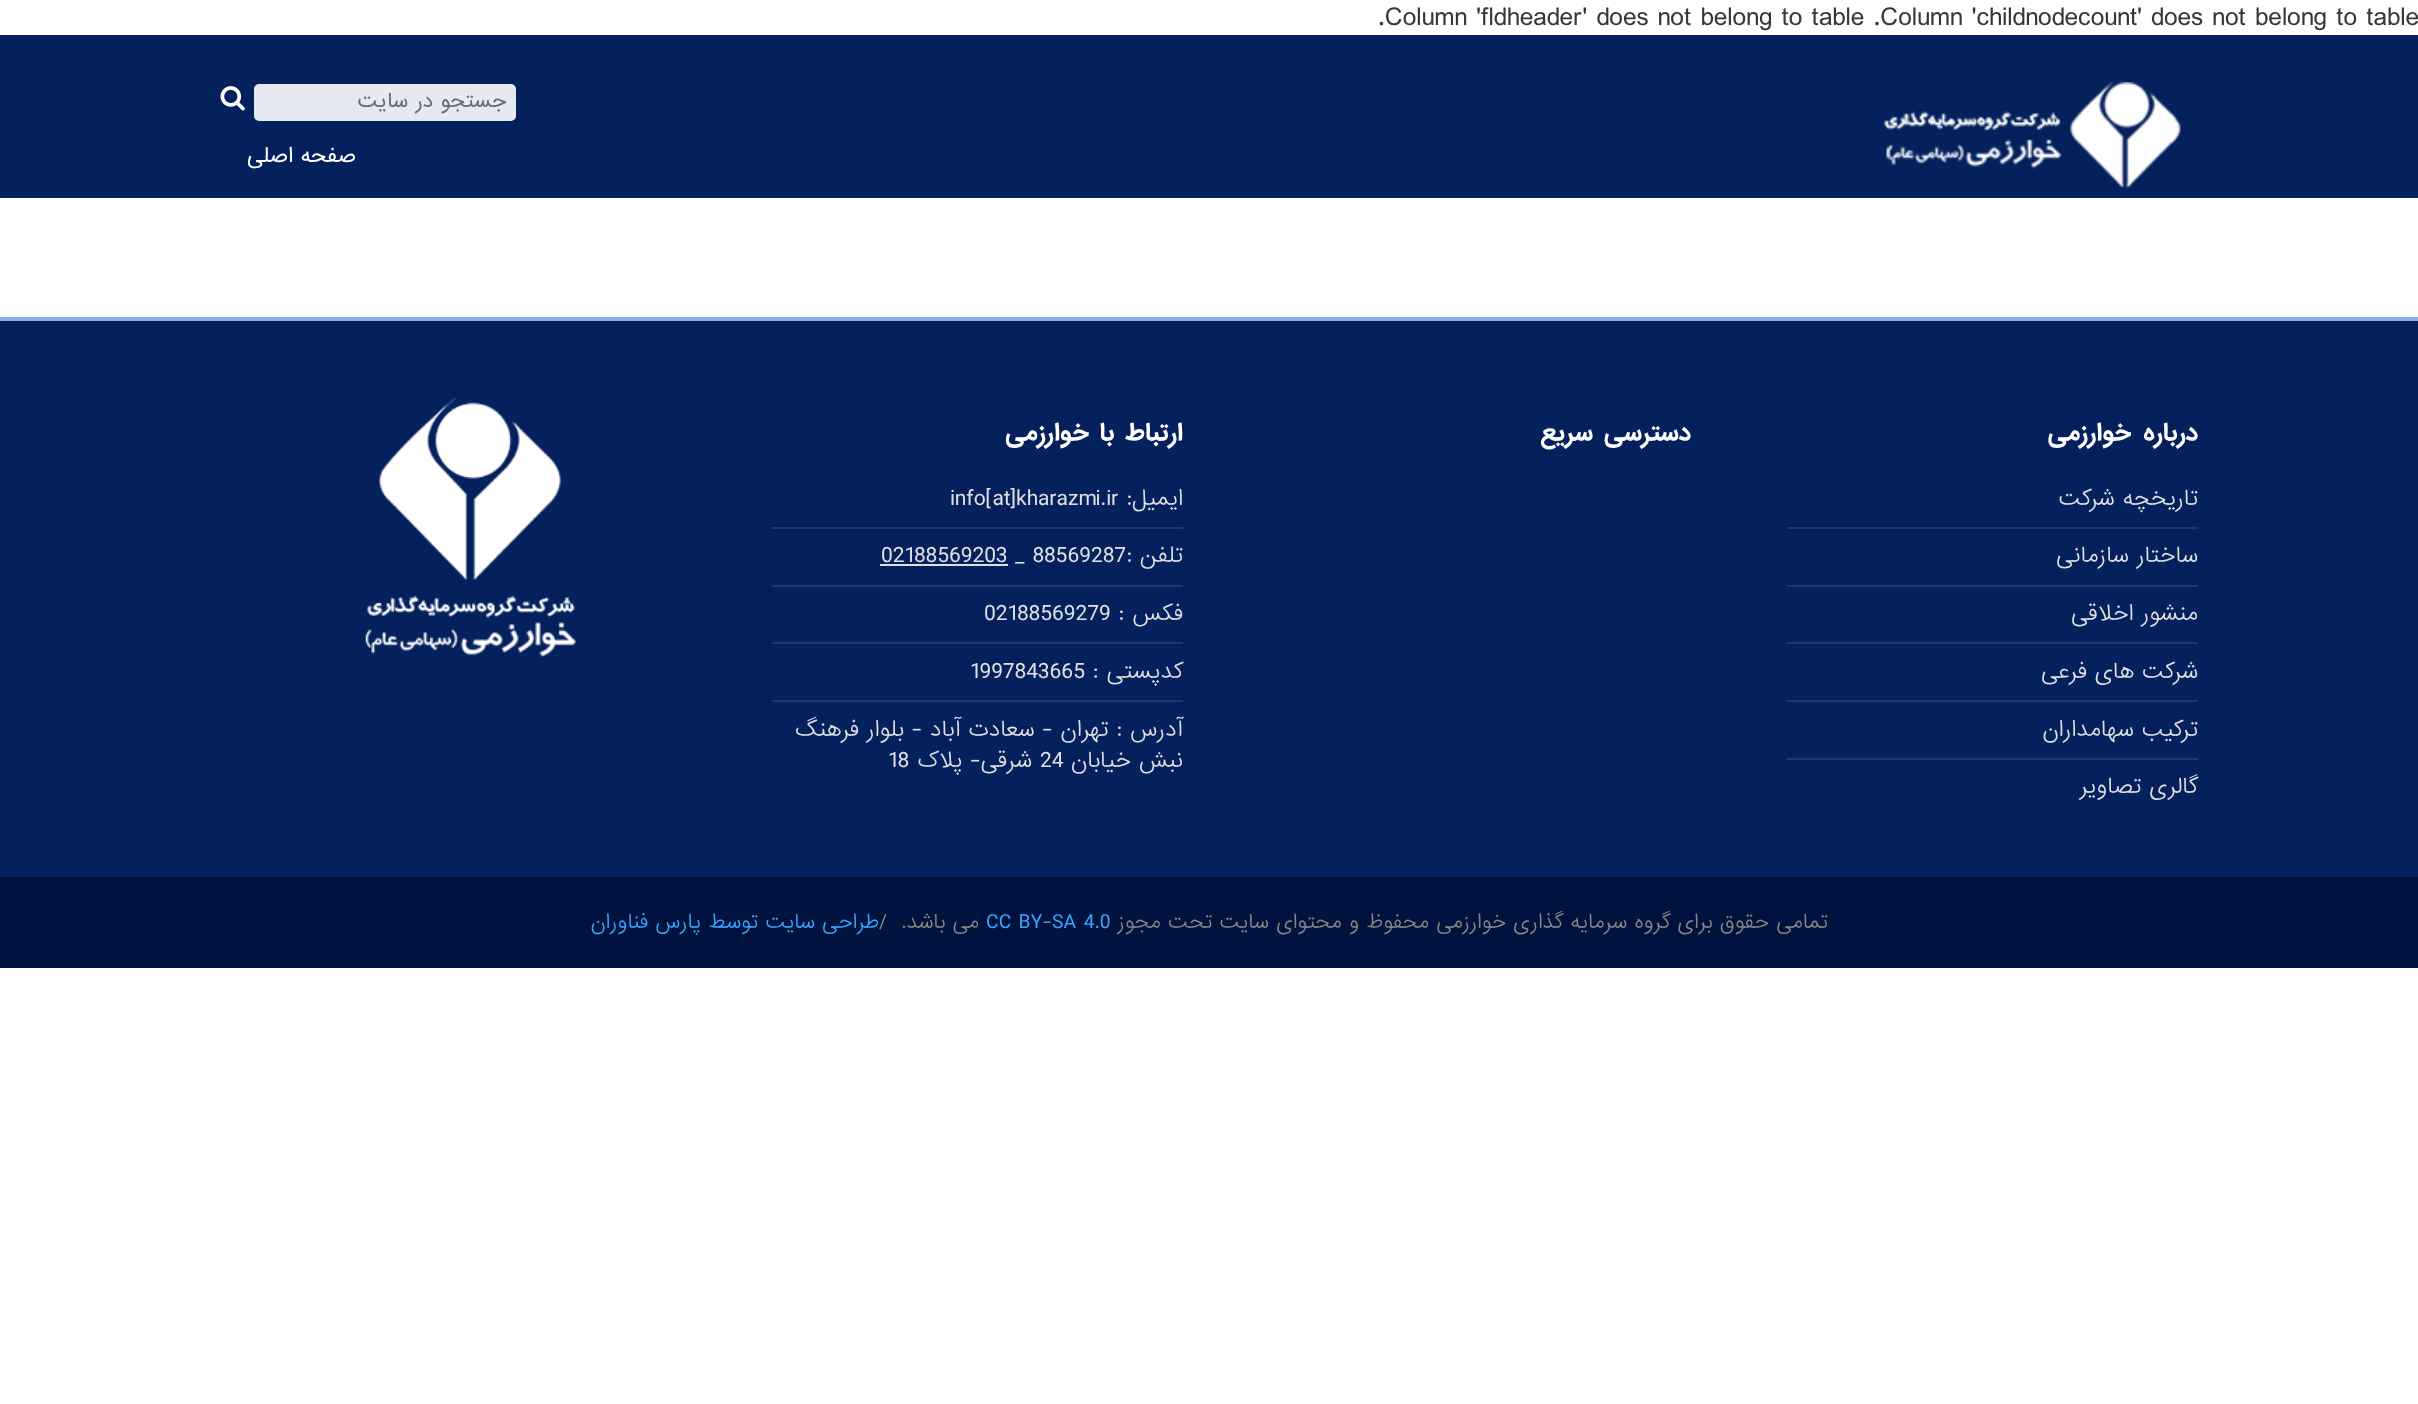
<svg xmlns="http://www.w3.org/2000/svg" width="2418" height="1404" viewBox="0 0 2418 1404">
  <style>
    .t1 { font: 24.5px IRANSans; fill: #373737; }
    .t2 { font: 19.25px IRANSans; direction: rtl; fill: #6a6d73; }
    .t3 { font: 19.75px IRANSans; direction: rtl; fill: #fff; }
    .t4 { font: bold 22.75px IRANSans; letter-spacing: -0.5px; direction: rtl; fill: #fff; }
    .t5 { font: 300 21px IRANSans; direction: rtl; fill: #e0e0e0; }
    .t6 { font: 300 21px IRANSans; fill: #e0e0e0; }
    .t7 { font: 300 19.25px IRANSans; direction: rtl; fill: #888; }
    .t8 { font: 300 19.25px IRANSans; fill: #36a8ff; }
    .t9 { font: 300 19.25px IRANSans; fill: #888; }
    .t10 { font: 300 19.25px IRANSans; direction: rtl; fill: #36a8ff; }
  </style>
  <rect width="100%" height="100%" fill="#fff"/>
  <text x="1378" y="25" class="t1">.Column 'fldheader' does not belong to table .Column 'childnodecount' does not belong to table</text>
  <rect x="0" y="35" width="2418" height="163" fill="#05215d"/>
  <rect x="255" y="85" width="260" height="35" rx="4" fill="#e6e9ef" stroke="#e6e9ef" stroke-width="2"/>
  <text x="506" y="107" class="t2">جستجو در سایت</text>
  <image x="220" y="86" width="25" height="25" href="images/1.png"/>
  <image x="1883" y="82" width="298" height="106" href="images/2.png"/>
  <text x="356" y="162" class="t3">صفحه اصلی</text>
  <rect x="0" y="321" width="2418" height="556" fill="#05215d"/>
  <rect x="0" y="317" width="2418" height="4" fill="#88b3e0"/>
  <text x="2198" y="440" word-spacing="6" class="t4">درباره خوارزمی</text>
  <rect x="1787" y="527" width="411" height="2" fill="#183c6b"/>
  <text x="2198" y="505" class="t5">تاریخچه شرکت</text>
  <rect x="1787" y="585" width="411" height="2" fill="#183c6b"/>
  <text x="2198" y="562" class="t5">ساختار سازمانی</text>
  <rect x="1787" y="642" width="411" height="2" fill="#183c6b"/>
  <text x="2198" y="620" class="t5">منشور اخلاقی</text>
  <rect x="1787" y="700" width="411" height="2" fill="#183c6b"/>
  <text x="2198" y="678" class="t5">شرکت های فرعی</text>
  <rect x="1787" y="758" width="411" height="2" fill="#183c6b"/>
  <text x="2198" y="736" class="t5">ترکیب سهامداران</text>
  <text x="2198" y="793" class="t5">گالری تصاویر</text>
  <text x="1691" y="440" word-spacing="5" class="t4">دسترسی سریع</text>
  <text x="1183" y="440" word-spacing="4" class="t4">ارتباط با خوارزمی</text>
  <rect x="772" y="527" width="411" height="2" fill="#183c6b"/>
  <text x="1183" y="505" class="t5">ایمیل:</text>
  <text x="950" y="505" class="t6">info[at]kharazmi.ir</text>
  <rect x="772" y="585" width="411" height="2" fill="#183c6b"/>
  <text x="1183" y="562" class="t5">تلفن :</text>
  <text x="1015" y="562" class="t6">_ 88569287</text>
  <text x="881" y="562" class="t6">02188569203</text>
  <rect x="880" y="564" width="128" height="2" fill="#e0e0e0"/>
  <rect x="772" y="642" width="411" height="2" fill="#183c6b"/>
  <text x="1183" y="620" class="t5">فکس :</text>
  <text x="984" y="620" class="t6">02188569279</text>
  <rect x="772" y="700" width="411" height="2" fill="#183c6b"/>
  <text x="1183" y="678" class="t5">کدپستی :</text>
  <text x="970" y="678" class="t6">1997843665</text>
  <text x="1183" y="736" class="t5">آدرس : تهران - سعادت آباد - بلوار فرهنگ</text>
  <text x="1183" y="767" class="t5">نبش خیابان</text>
  <text x="1040" y="767" class="t6">24</text>
  <text x="1032" y="767" class="t5">شرقی- پلاک</text>
  <text x="888" y="767" class="t6">18</text>
  <image x="365" y="397" width="211" height="260" href="images/3.png"/>
  <rect x="0" y="877" width="2418" height="91" fill="#00133f"/>
  <text x="1828" y="928" class="t7">تمامی حقوق برای گروه سرمایه گذاری خوارزمی محفوظ و محتوای سایت تحت مجوز</text>
  <text x="986" y="928" class="t8">CC BY-SA 4.0</text>
  <text x="979" y="928" class="t7">می باشد.</text>
  <text x="879" y="928" class="t9">/</text>
  <text x="879" y="928" class="t10">طراحی سایت توسط پارس فناوران</text>
</svg>
